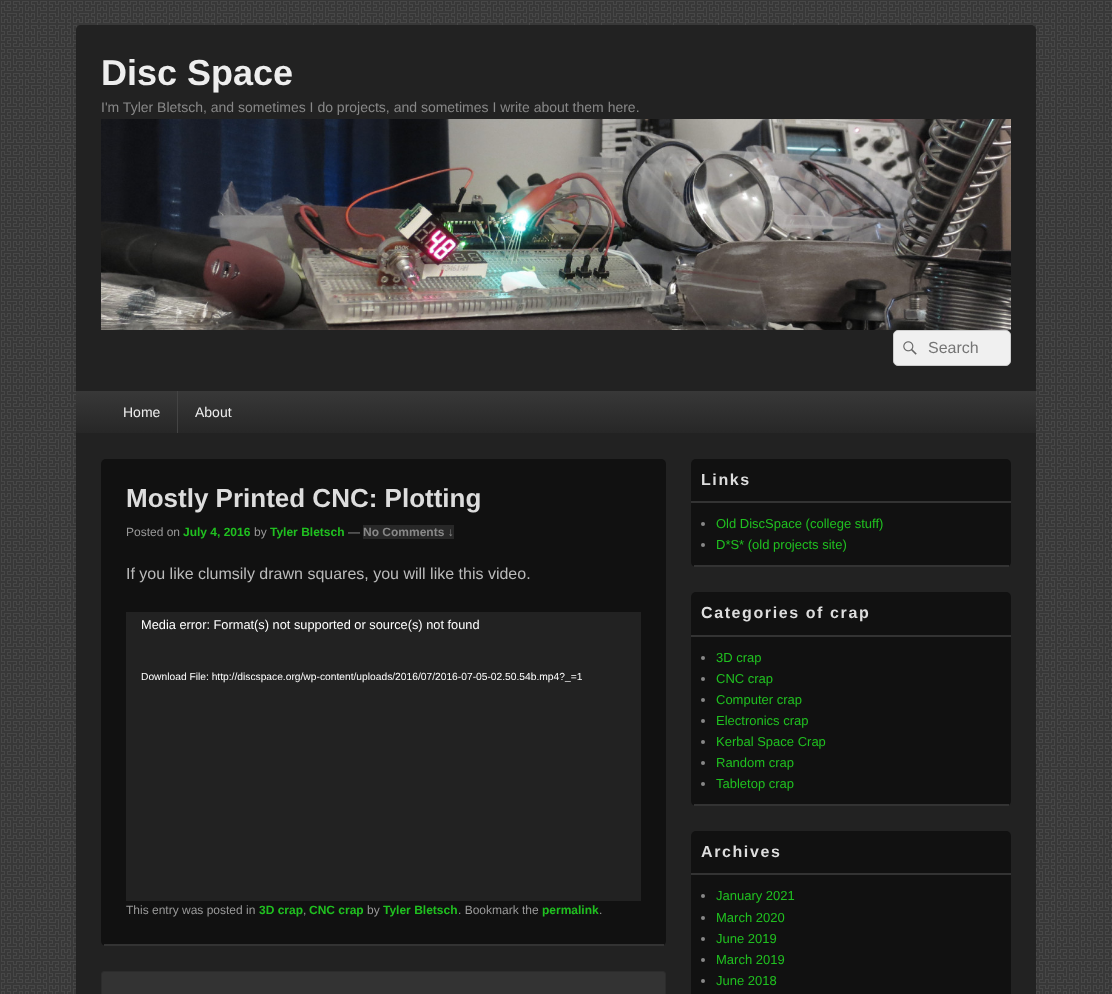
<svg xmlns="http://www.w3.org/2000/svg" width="1112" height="994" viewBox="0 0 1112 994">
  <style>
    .t1 { font: bold 36px Liberation Sans; fill: #eee; }
    .t2 { font: 14px Liberation Sans; fill: #888; }
    .t3 { font: 16px Liberation Sans; fill: #757575; }
    .t4 { font: 14px Liberation Sans; fill: #eee; }
    .t5 { font: bold 26px Liberation Sans; fill: #ddd; }
    .t6 { font: 12px Liberation Sans; fill: #999; }
    .t7 { font: bold 12px Liberation Sans; fill: #20c020; }
    .t8 { font: bold 12px Liberation Sans; fill: #888; }
    .t9 { font: 16px Liberation Sans; fill: #bbb; }
    .t10 { font: 12.8px Liberation Sans; fill: #fff; }
    .t11 { font: 10.25px Liberation Sans; fill: #fff; }
    .t12 { font: bold 16px Liberation Sans; letter-spacing: 1.6px; fill: #ddd; }
    .t13 { font: 13px Liberation Sans; fill: #20c020; }
  </style>
  <defs>
    <linearGradient id="g1" gradientUnits="userSpaceOnUse" x1="556" y1="391" x2="556" y2="433"><stop offset="0" stop-color="#383838"/><stop offset="1" stop-color="#272727"/></linearGradient>
  </defs>
  <rect width="100%" height="100%" fill="#fff"/>
  <image x="0" y="0" width="1112" height="994" href="images/1.png"/>
  <path d="M81 25H1031C1034 25 1036 27 1036 30V434H76V30C76 27 78 25 81 25Z" fill="#222"/>
  <text x="101" y="85" class="t1">Disc Space</text>
  <text x="101" y="112" class="t2">I'm Tyler Bletsch, and sometimes I do projects, and sometimes I write about them here.</text>
  <image x="101" y="119" width="910" height="211" href="images/2.png"/>
  <rect x="893.5" y="330.5" width="117" height="35" rx="4.5" fill="#f0f0f0" stroke="#ccc"/>
  <image x="903" y="341" width="14" height="14" href="images/3.png"/>
  <text x="928" y="353" class="t3">Search</text>
  <rect x="76" y="391" width="960" height="42" fill="url(#g1)"/>
  <text x="123" y="417" class="t4">Home</text>
  <rect x="177" y="391" width="1" height="42" fill="#444"/>
  <text x="195" y="417" class="t4">About</text>
  <rect x="76" y="434" width="960" height="560" fill="#222"/>
  <rect x="101" y="459" width="565" height="487" rx="5" fill="#111"/>
  <rect x="104" y="944" width="560" height="2" fill="#333"/>
  <text x="126" y="507" class="t5">Mostly Printed CNC: Plotting</text>
  <text x="126" y="536" class="t6">Posted on</text>
  <text x="183" y="536" class="t7">July 4, 2016</text>
  <text x="254" y="536" class="t6">by</text>
  <text x="270" y="536" class="t7">Tyler Bletsch</text>
  <text x="348" y="536" class="t6">—</text>
  <rect x="363" y="525" width="91" height="14" fill="#282828"/>
  <text x="363" y="536" class="t8">No Comments ↓</text>
  <text x="126" y="579" class="t9">If you like clumsily drawn squares, you will like this video.</text>
  <rect x="126" y="612" width="515" height="289" fill="#222"/>
  <text x="141" y="629" class="t10">Media error: Format(s) not supported or source(s) not found</text>
  <text x="141" y="680" class="t11">Download File: http://discspace.org/wp-content/uploads/2016/07/2016-07-05-02.50.54b.mp4?_=1</text>
  <text x="126" y="914" class="t6">This entry was posted in</text>
  <text x="259" y="914" class="t7">3D crap</text>
  <text x="303" y="914" class="t6">,</text>
  <text x="309" y="914" class="t7">CNC crap</text>
  <text x="367" y="914" class="t6">by</text>
  <text x="383" y="914" class="t7">Tyler Bletsch</text>
  <text x="458" y="914" class="t6">. Bookmark the</text>
  <text x="542" y="914" class="t7">permalink</text>
  <text x="599" y="914" class="t6">.</text>
  <rect x="101.5" y="971.5" width="564" height="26" rx="2.5" fill="#333" stroke="#2c2c2c"/>
  <rect x="691" y="459" width="320" height="108" rx="5" fill="#111"/>
  <rect x="694" y="565" width="315" height="2" fill="#333"/>
  <rect x="691" y="501" width="320" height="2" fill="#333"/>
  <text x="701" y="485" class="t12">Links</text>
  <circle cx="703" cy="524" r="2" fill="#888"/>
  <text x="716" y="528" class="t13">Old DiscSpace (college stuff)</text>
  <circle cx="703" cy="545" r="2" fill="#888"/>
  <text x="716" y="549" class="t13">D*S* (old projects site)</text>
  <rect x="691" y="592" width="320" height="214" rx="5" fill="#111"/>
  <rect x="694" y="804" width="315" height="2" fill="#333"/>
  <rect x="691" y="635" width="320" height="2" fill="#333"/>
  <text x="701" y="618" class="t12">Categories of crap</text>
  <circle cx="703" cy="658" r="2" fill="#888"/>
  <text x="716" y="662" class="t13">3D crap</text>
  <circle cx="703" cy="679" r="2" fill="#888"/>
  <text x="716" y="683" class="t13">CNC crap</text>
  <circle cx="703" cy="700" r="2" fill="#888"/>
  <text x="716" y="704" class="t13">Computer crap</text>
  <circle cx="703" cy="721" r="2" fill="#888"/>
  <text x="716" y="725" class="t13">Electronics crap</text>
  <circle cx="703" cy="742" r="2" fill="#888"/>
  <text x="716" y="746" class="t13">Kerbal Space Crap</text>
  <circle cx="703" cy="763" r="2" fill="#888"/>
  <text x="716" y="767" class="t13">Random crap</text>
  <circle cx="703" cy="784" r="2" fill="#888"/>
  <text x="716" y="788" class="t13">Tabletop crap</text>
  <rect x="691" y="831" width="320" height="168" rx="5" fill="#111"/>
  <rect x="691" y="873" width="320" height="2" fill="#333"/>
  <text x="701" y="857" class="t12">Archives</text>
  <circle cx="703" cy="896" r="2" fill="#888"/>
  <text x="716" y="900" class="t13">January 2021</text>
  <circle cx="703" cy="918" r="2" fill="#888"/>
  <text x="716" y="922" class="t13">March 2020</text>
  <circle cx="703" cy="939" r="2" fill="#888"/>
  <text x="716" y="943" class="t13">June 2019</text>
  <circle cx="703" cy="960" r="2" fill="#888"/>
  <text x="716" y="964" class="t13">March 2019</text>
  <circle cx="703" cy="981" r="2" fill="#888"/>
  <text x="716" y="985" class="t13">June 2018</text>
</svg>
